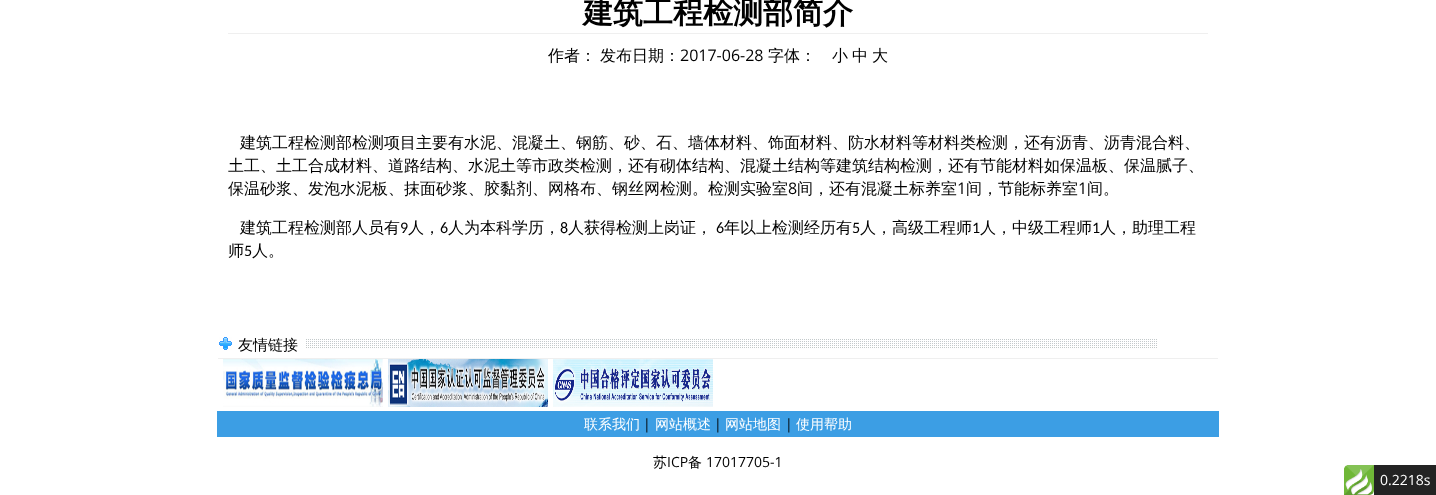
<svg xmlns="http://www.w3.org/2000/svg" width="1436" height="495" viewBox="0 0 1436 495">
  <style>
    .t1 { font: bold 30px WenQuanYi Zen Hei; fill: #000; }
    .t2 { font: 500 16px WenQuanYi Zen Hei; fill: #000; }
    .t3 { font: 16px Open Sans; fill: #000; }
    .t4 { font: 16px Carlito; fill: #000; }
    .t5 { font: 500 15px WenQuanYi Zen Hei; fill: #000; }
    .t6 { font: 500 14px WenQuanYi Zen Hei; fill: #fff; }
    .t7 { font: 14px Open Sans; fill: #000; }
    .t8 { font: 500 14px WenQuanYi Zen Hei; fill: #000; }
    .t9 { font: 14px Open Sans; fill: #fff; }
  </style>
  <rect width="100%" height="100%" fill="#fff"/>
  <text x="583" y="23" class="t1">建筑工程检测部简介</text>
  <rect x="228" y="33" width="980" height="1" fill="#efefef"/>
  <text x="548" y="61" class="t2">作者：</text>
  <text x="600" y="61" class="t2">发布日期：</text>
  <text x="680" y="61" class="t3">2017-06-28</text>
  <text x="768" y="61" class="t2">字体：</text>
  <text x="832" y="61" class="t2">小</text>
  <text x="852" y="61" class="t2">中</text>
  <text x="872" y="61" class="t2">大</text>
  <text x="240" y="148" class="t2">建筑工程检测部检测项目主要有水泥、混凝土、钢筋、砂、石、墙体材料、饰面材料、防水材料等材料类检测，还有沥青、沥青混合料、</text>
  <text x="228" y="171" class="t2">土工、土工合成材料、道路结构、水泥土等市政类检测，还有砌体结构、混凝土结构等建筑结构检测，还有节能材料如保温板、保温腻子、</text>
  <text x="228" y="194" class="t2">保温砂浆、发泡水泥板、抹面砂浆、胶黏剂、网格布、钢丝网检测。检测实验室</text>
  <text x="788" y="194" class="t3">8</text>
  <text x="797" y="194" class="t2">间，还有混凝土标养室</text>
  <text x="957" y="194" class="t3">1</text>
  <text x="966" y="194" class="t2">间，节能标养室</text>
  <text x="1078" y="194" class="t3">1</text>
  <text x="1087" y="194" class="t2">间。</text>
  <text x="240" y="233" class="t2">建筑工程检测部人员有</text>
  <text x="400" y="233" class="t4">9</text>
  <text x="408" y="233" class="t2">人，</text>
  <text x="440" y="233" class="t4">6</text>
  <text x="448" y="233" class="t2">人为本科学历，</text>
  <text x="560" y="233" class="t4">8</text>
  <text x="568" y="233" class="t2">人获得检测上岗证，</text>
  <text x="716" y="233" class="t4">6</text>
  <text x="724" y="233" class="t2">年以上检测经历有</text>
  <text x="852" y="233" class="t4">5</text>
  <text x="860" y="233" class="t2">人，高级工程师</text>
  <text x="972" y="233" class="t4">1</text>
  <text x="980" y="233" class="t2">人，中级工程师</text>
  <text x="1092" y="233" class="t4">1</text>
  <text x="1100" y="233" class="t2">人，助理工程</text>
  <text x="228" y="256" class="t2">师</text>
  <text x="244" y="256" class="t4">5</text>
  <text x="252" y="256" class="t2">人。</text>
  <image x="219" y="337" width="938" height="13" href="images/1.png"/>
  <rect x="218" y="358" width="1000" height="1" fill="#efefef"/>
  <text x="238" y="350" class="t5">友情链接</text>
  <image x="223" y="359" width="160" height="48" href="images/2.png"/>
  <image x="388" y="359" width="160" height="48" href="images/3.png"/>
  <image x="553" y="359" width="160" height="48" href="images/4.png"/>
  <rect x="217" y="411" width="1002" height="26" fill="#3c9ee4"/>
  <text x="584" y="429" class="t6">联系我们</text>
  <text x="643" y="429" class="t7">|</text>
  <text x="655" y="429" class="t6">网站概述</text>
  <text x="714" y="429" class="t7">|</text>
  <text x="725" y="429" class="t6">网站地图</text>
  <text x="785" y="429" class="t7">|</text>
  <text x="796" y="429" class="t6">使用帮助</text>
  <text x="653" y="467" class="t8">苏</text>
  <text x="667" y="467" class="t7">ICP</text>
  <text x="688" y="467" class="t8">备</text>
  <text x="706" y="467" class="t7">17017705-1</text>
  <image x="1344" y="465" width="30" height="30" href="images/5.png"/>
  <rect x="1374" y="465" width="62" height="30" fill="#232323"/>
  <text x="1380" y="485" class="t9">0.2218s</text>
</svg>
